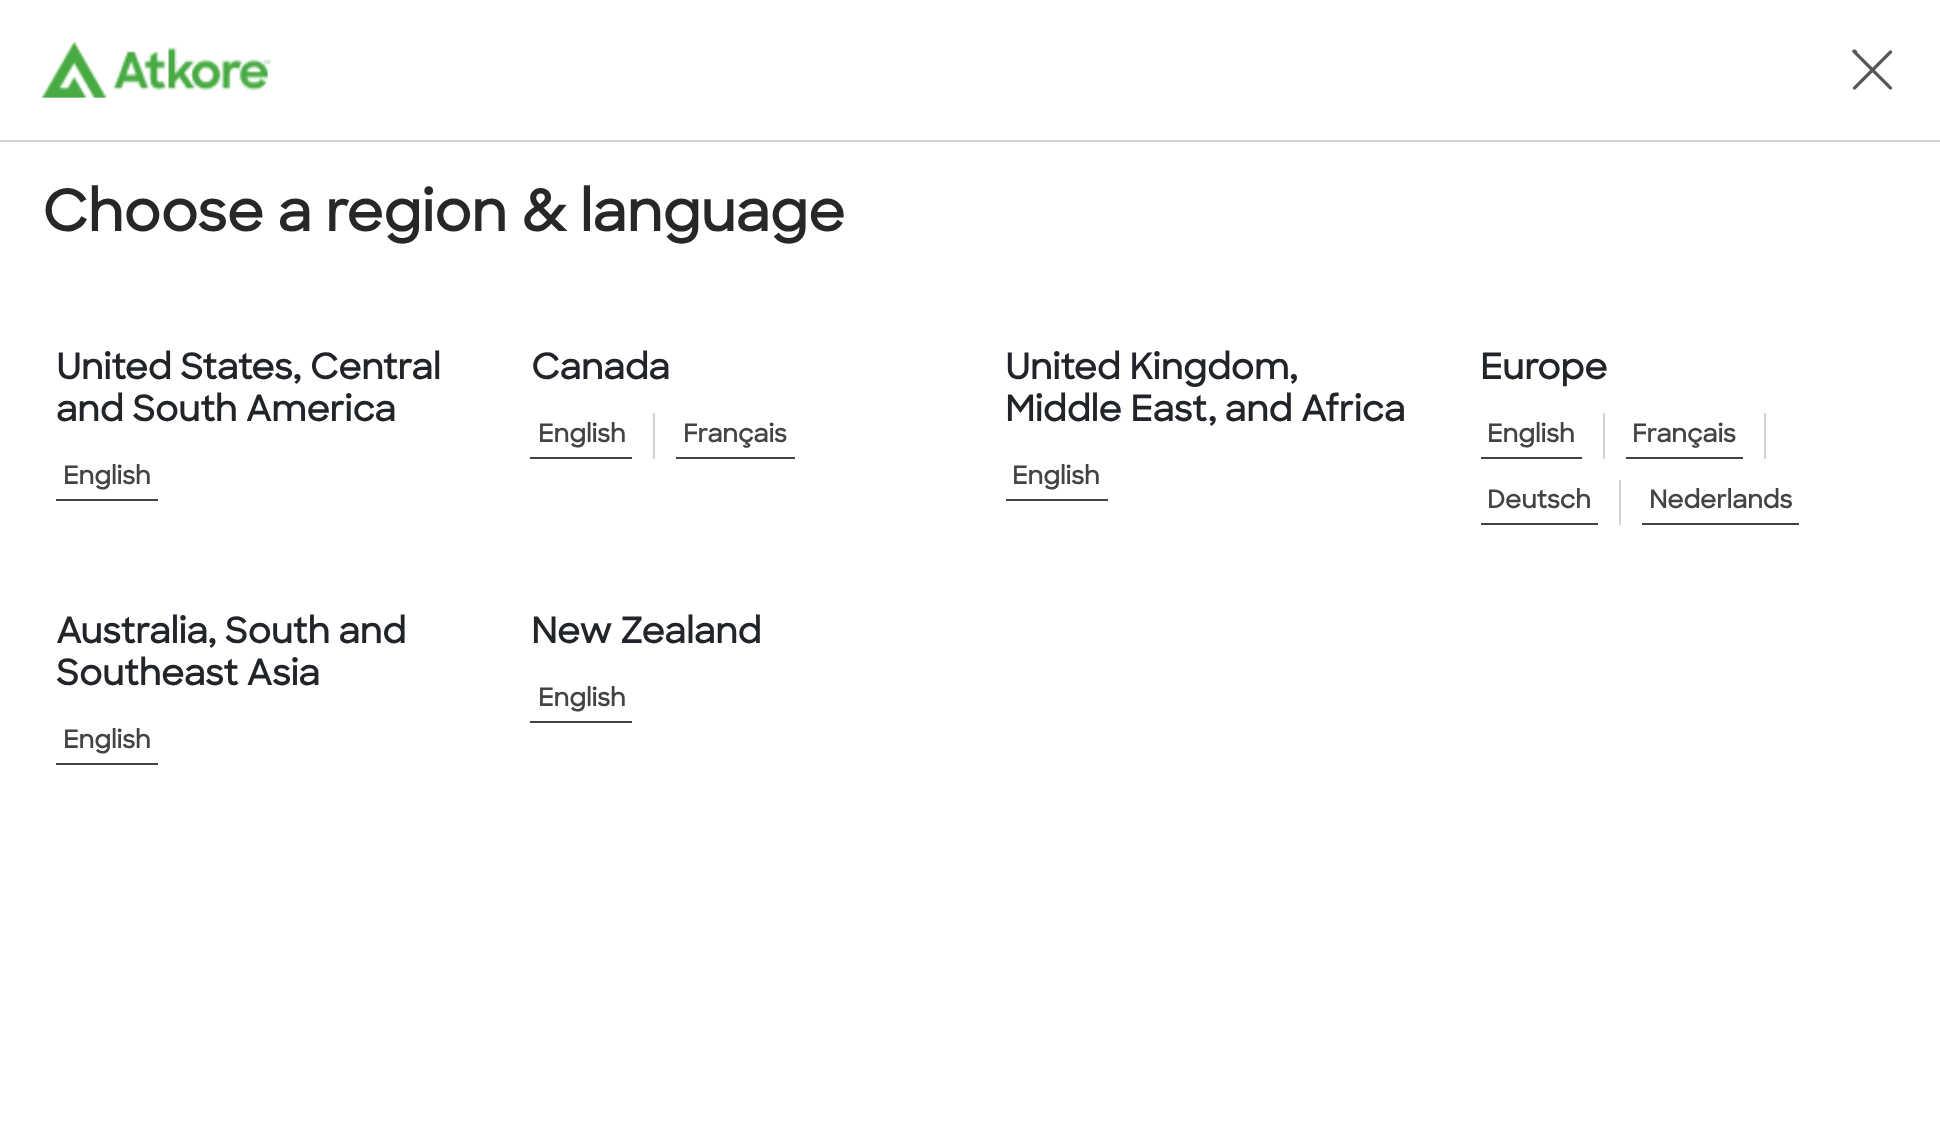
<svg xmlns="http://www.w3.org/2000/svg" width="1940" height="1127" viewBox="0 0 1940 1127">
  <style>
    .t1 { font: bold 56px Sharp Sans; fill: #27272a; }
    .t2 { font: bold 35px Sharp Sans; fill: #212529; }
    .t3 { font: bold 24.5px Sharp Sans; fill: #434346; }
  </style>
  <rect width="100%" height="100%" fill="#fff"/>
  <rect x="0" y="140" width="1940" height="2" fill="#d1d3d4"/>
  <image x="42" y="42" width="228" height="56" href="images/1.png"/>
  <image x="1851" y="49" width="42" height="41" href="images/2.png"/>
  <text x="42" y="231" class="t1">Choose a region &amp; language</text>
  <text x="56" y="379" class="t2">United States, Central</text>
  <text x="56" y="421" class="t2">and South America</text>
  <rect x="56" y="499" width="102" height="2" fill="#434346"/>
  <text x="63" y="484" class="t3">English</text>
  <text x="531" y="379" class="t2">Canada</text>
  <rect x="653" y="413" width="2" height="46" fill="#d1d3d4"/>
  <rect x="530" y="457" width="102" height="2" fill="#434346"/>
  <text x="538" y="442" class="t3">English</text>
  <rect x="676" y="457" width="119" height="2" fill="#434346"/>
  <text x="683" y="442" class="t3">Français</text>
  <text x="1005" y="379" class="t2">United Kingdom,</text>
  <text x="1005" y="421" class="t2">Middle East, and Africa</text>
  <rect x="1006" y="499" width="102" height="2" fill="#434346"/>
  <text x="1012" y="484" class="t3">English</text>
  <text x="1480" y="379" class="t2">Europe</text>
  <rect x="1603" y="413" width="2" height="46" fill="#d1d3d4"/>
  <rect x="1481" y="457" width="101" height="2" fill="#434346"/>
  <text x="1487" y="442" class="t3">English</text>
  <rect x="1764" y="413" width="2" height="46" fill="#d1d3d4"/>
  <rect x="1626" y="457" width="117" height="2" fill="#434346"/>
  <text x="1632" y="442" class="t3">Français</text>
  <rect x="1619" y="480" width="2" height="45" fill="#d1d3d4"/>
  <rect x="1481" y="523" width="117" height="2" fill="#434346"/>
  <text x="1487" y="508" class="t3">Deutsch</text>
  <rect x="1642" y="523" width="157" height="2" fill="#434346"/>
  <text x="1649" y="508" class="t3">Nederlands</text>
  <text x="56" y="643" class="t2">Australia, South and</text>
  <text x="56" y="685" class="t2">Southeast Asia</text>
  <rect x="56" y="763" width="102" height="2" fill="#434346"/>
  <text x="63" y="748" class="t3">English</text>
  <text x="531" y="643" class="t2">New Zealand</text>
  <rect x="530" y="721" width="102" height="2" fill="#434346"/>
  <text x="538" y="706" class="t3">English</text>
</svg>
